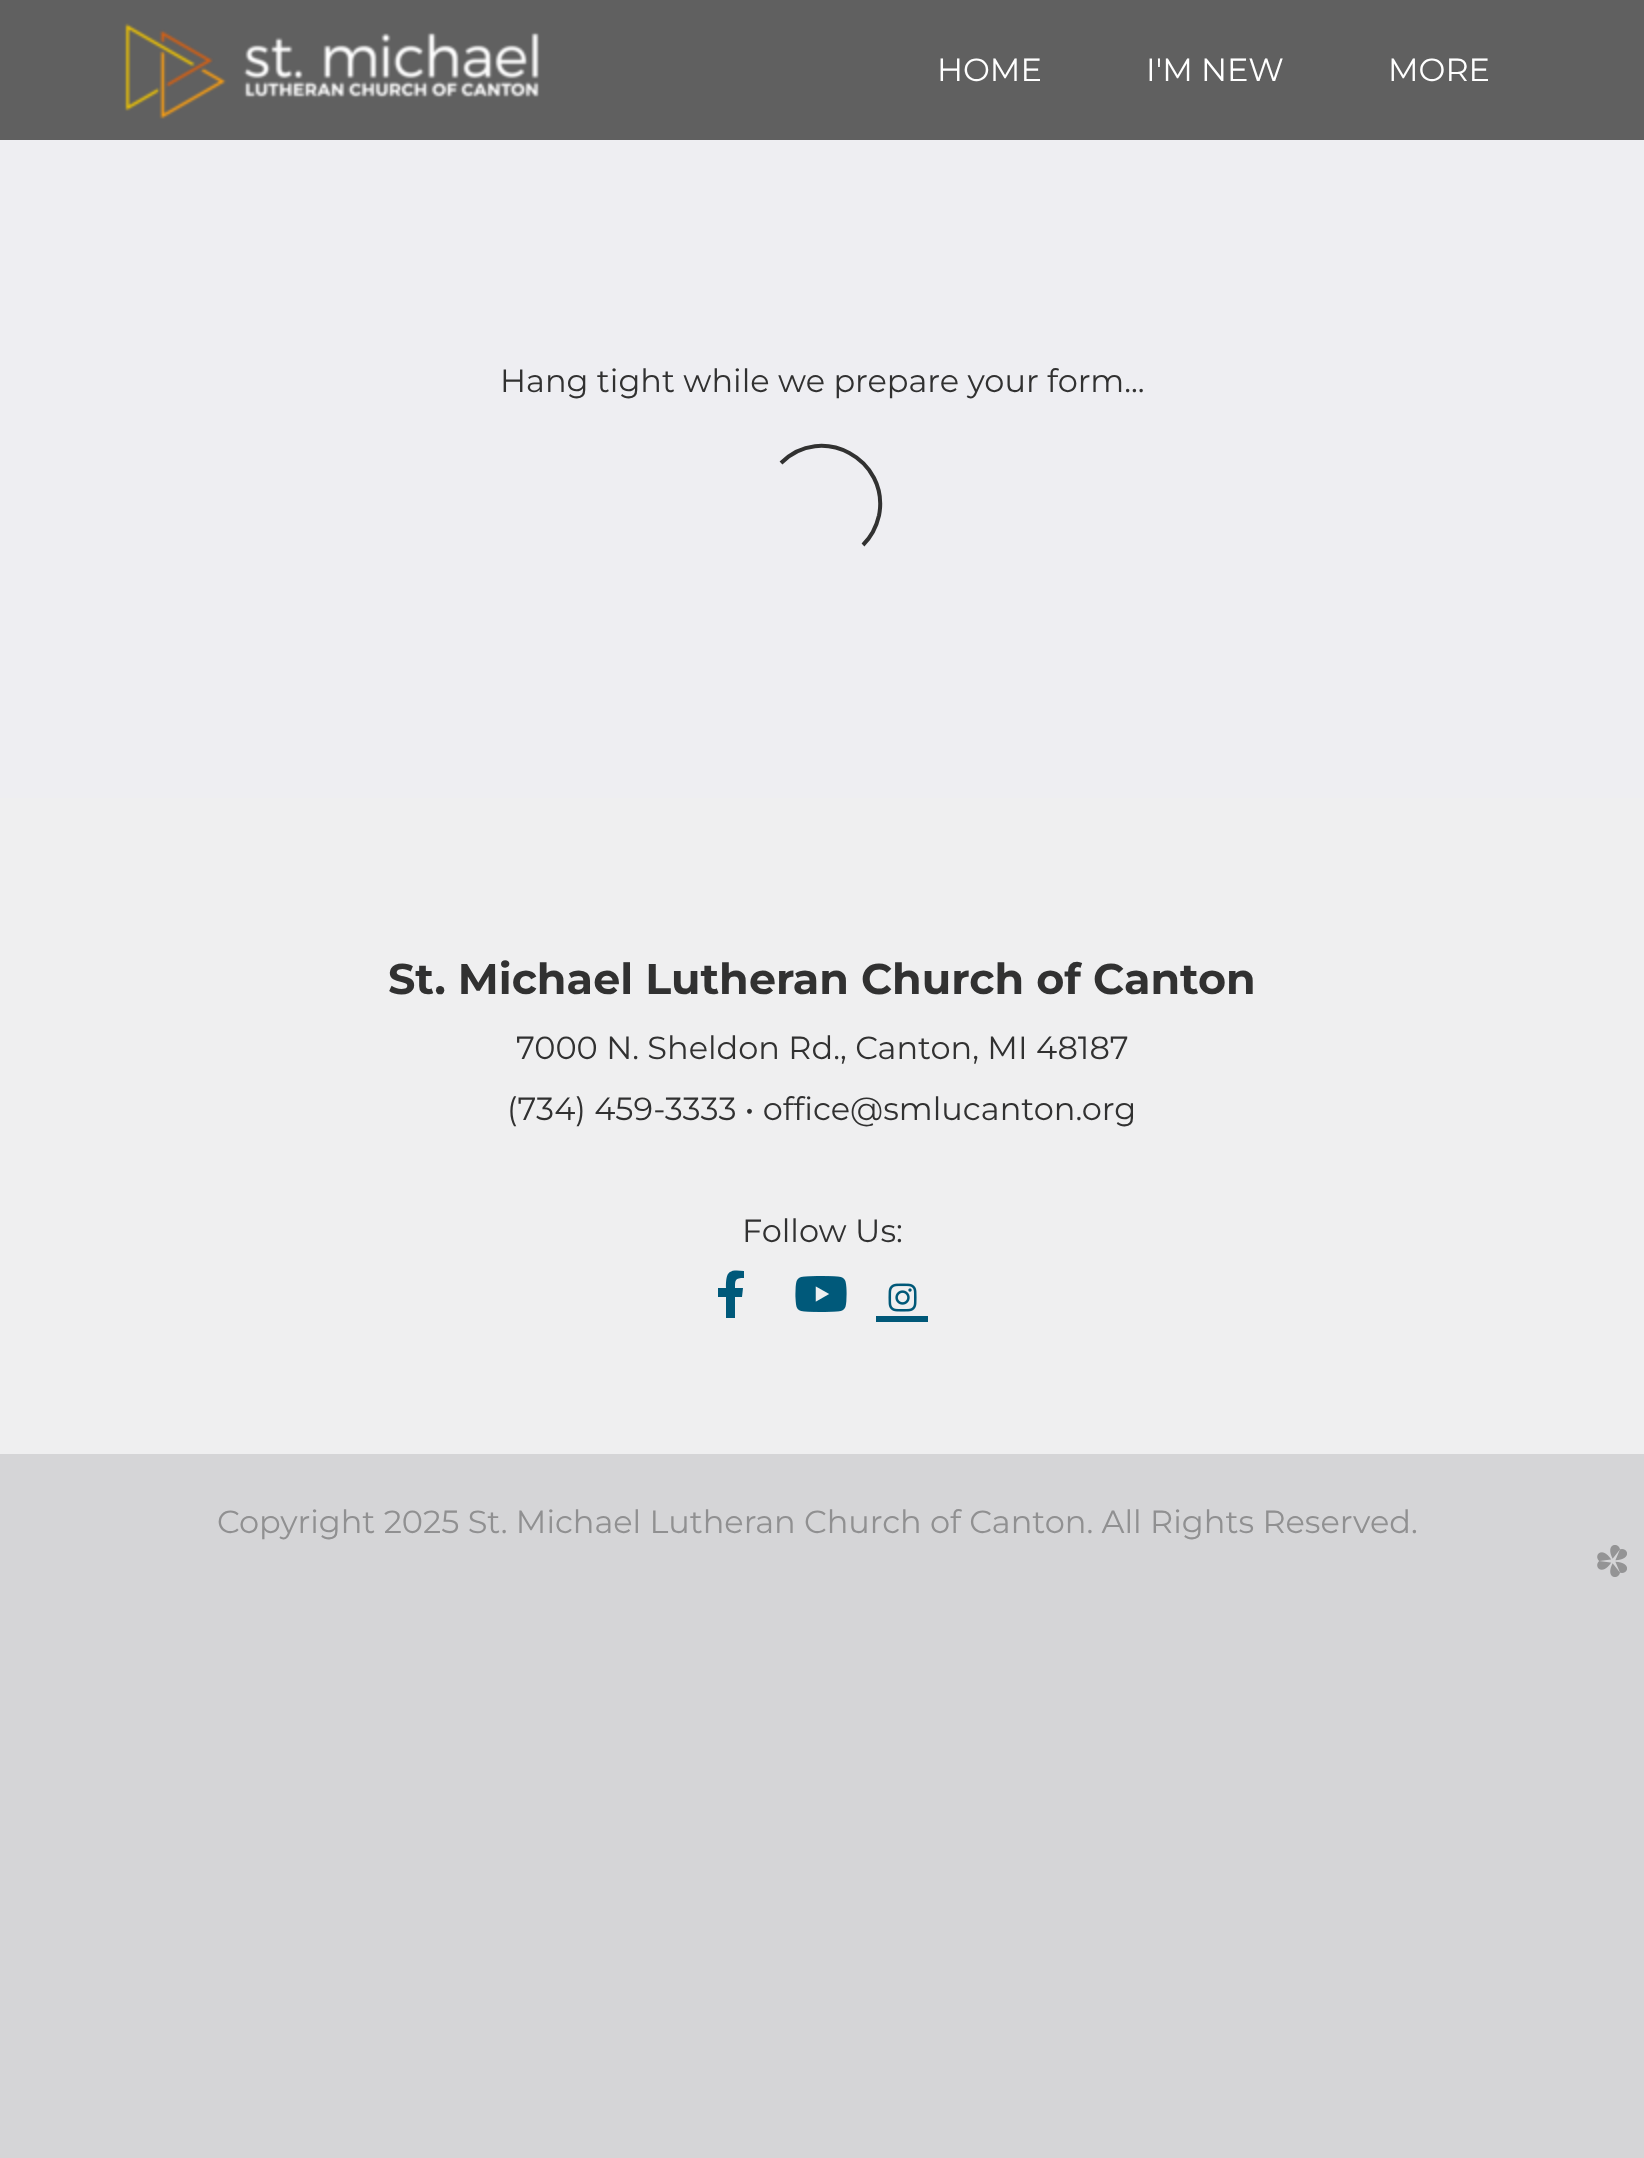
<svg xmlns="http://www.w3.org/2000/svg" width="1644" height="2158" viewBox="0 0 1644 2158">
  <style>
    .t1 { font: 32px Montserrat; fill: #fff; }
    .t2 { font: 32px Montserrat; fill: #313131; }
    .t3 { font: bold 42.9px Montserrat; fill: #313131; }
    .t4 { font: 32px Montserrat; fill: #909091; }
  </style>
  <rect width="100%" height="100%" fill="#d5d5d7"/>
  <rect x="0" y="0" width="1644" height="140" fill="#606060"/>
  <image x="124" y="23" width="416" height="96" href="images/1.png"/>
  <text x="937" y="81" class="t1">HOME</text>
  <text x="1146" y="81" class="t1">I'M NEW</text>
  <text x="1388" y="81" class="t1">MORE</text>
  <rect x="0" y="140" width="1644" height="658" fill="#eeeef2"/>
  <text x="500" y="392" class="t2">Hang tight while we prepare your form...</text>
  <path d="M781 463C821.5 422.5 890 459.5 879 515.5C876.5 526.5 871 537 863 545" fill="none" stroke="#313131" stroke-width="4"/>
  <rect x="0" y="798" width="1644" height="656" fill="#efeff0"/>
  <text x="388" y="994" class="t3">St. Michael Lutheran Church of Canton</text>
  <text x="516" y="1059" class="t2">7000 N. Sheldon Rd., Canton, MI 48187</text>
  <text x="507" y="1120" class="t2">(734) 459-3333 • office@smlucanton.org</text>
  <text x="742" y="1242" class="t2">Follow Us:</text>
  <path d="M742 1297H735V1318H726V1297H718V1288H726C726 1272 728 1269 744 1271V1278C735 1278 735 1280 735 1288H743Z" fill="#00597a"/>
  <image x="795" y="1276" width="52" height="36" href="images/2.png"/>
  <image x="888" y="1283" width="29" height="29" href="images/3.png"/>
  <rect x="876" y="1316" width="52" height="6" fill="#005878"/>
  <text x="217" y="1533" class="t4">Copyright 2025 St. Michael Lutheran Church of Canton. All Rights Reserved.</text>
  <image x="1597" y="1545" width="30" height="32" href="images/4.png"/>
</svg>
